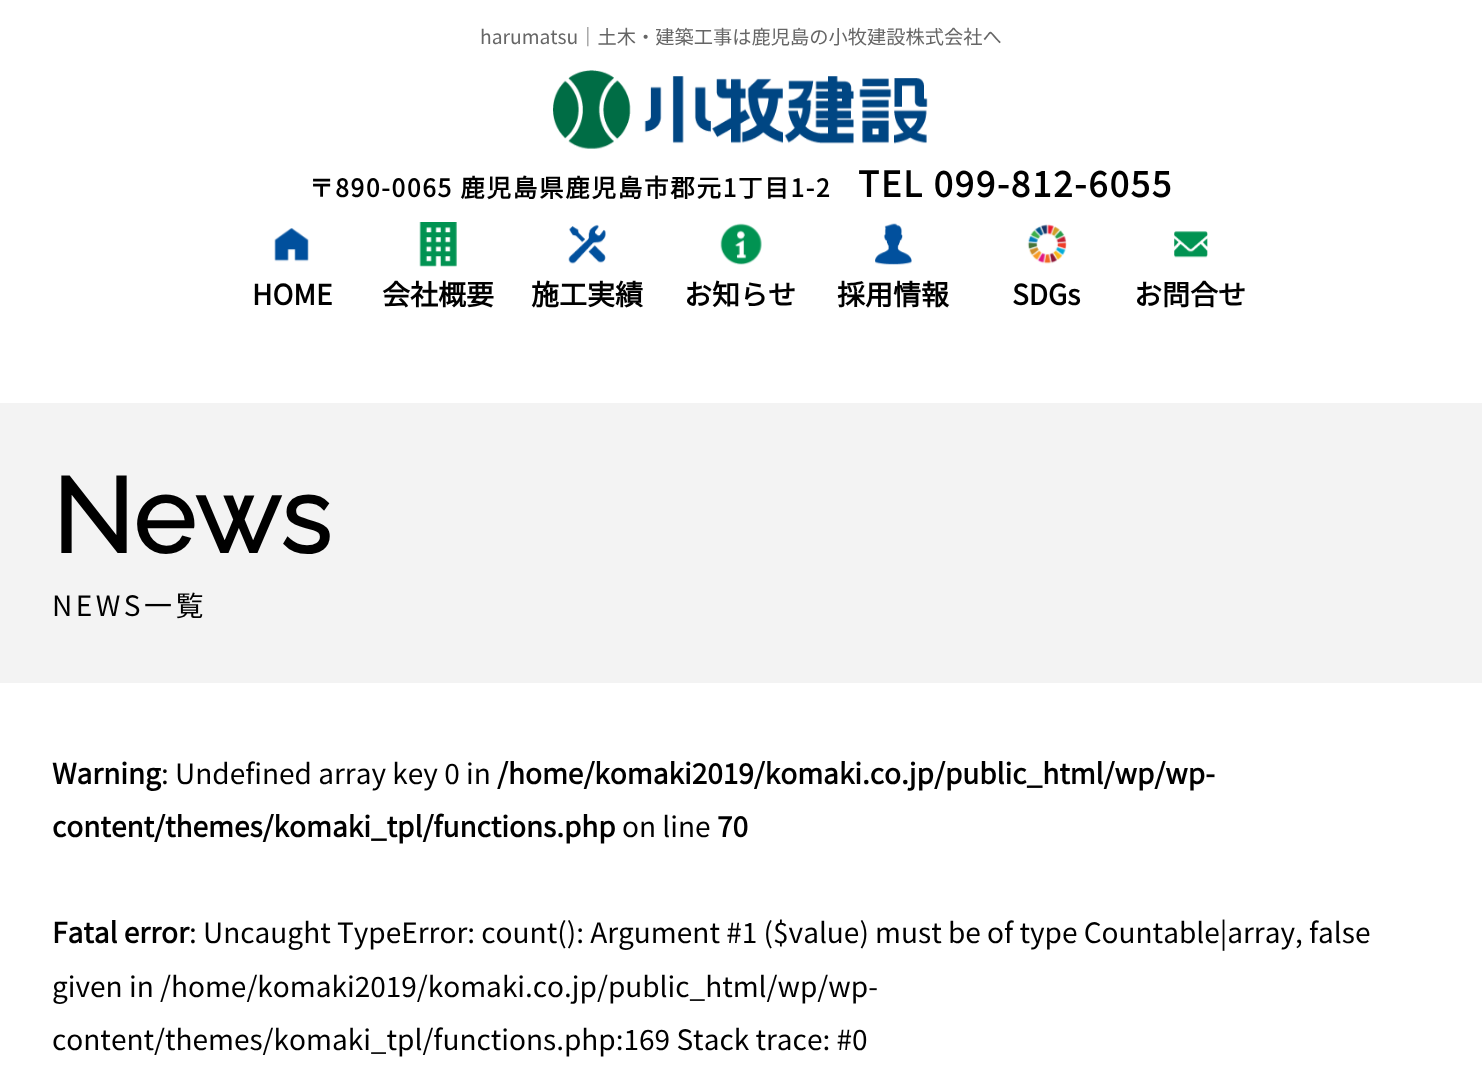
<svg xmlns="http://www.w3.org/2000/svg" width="1482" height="1090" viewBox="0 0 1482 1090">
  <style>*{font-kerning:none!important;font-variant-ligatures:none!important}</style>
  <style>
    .t1 { font: 100 19.25px Noto Sans JP; fill: #666; }
    .t2 { font: bold 24.5px Noto Sans JP; letter-spacing: 1.75px; fill: #000; }
    .t3 { font: bold 35px Noto Sans JP; letter-spacing: 1.75px; fill: #000; }
    .t4 { font: bold 28px Noto Sans JP; fill: #000; }
    .t5 { font: bold 105px Raleway; fill: #000; }
    .t6 { font: 100 28px Noto Sans JP; letter-spacing: 3.5px; fill: #000; }
    .t7 { font: 100 28px Noto Sans JP; fill: #000; }
  </style>
  <rect width="100%" height="100%" fill="#fff"/>
  <text x="480" y="44" class="t1">harumatsu｜土木・建築工事は鹿児島の小牧建設株式会社へ</text>
  <image x="553" y="70" width="375" height="79" href="images/1.png"/>
  <text x="309" y="197" class="t2">〒890-0065 鹿児島県鹿児島市郡元1丁目1-2</text>
  <text x="858" y="197" class="t3">TEL 099-812-6055</text>
  <image x="274" y="228" width="35" height="34" href="images/2.png"/>
  <text x="252" y="305" class="t4">HOME</text>
  <image x="419" y="222" width="38" height="45" href="images/3.png"/>
  <text x="382" y="305" class="t4">会社概要</text>
  <image x="568" y="224" width="38" height="40" href="images/4.png"/>
  <text x="531" y="305" class="t4">施工実績</text>
  <image x="720" y="223" width="42" height="42" href="images/5.png"/>
  <text x="684" y="305" class="t4">お知らせ</text>
  <image x="875" y="223" width="37" height="42" href="images/6.png"/>
  <text x="837" y="305" class="t4">採用情報</text>
  <image x="1027" y="224" width="40" height="40" href="images/7.png"/>
  <text x="1012" y="305" class="t4">SDGs</text>
  <image x="1174" y="231" width="34" height="27" href="images/8.png"/>
  <text x="1134" y="305" class="t4">お問合せ</text>
  <rect x="0" y="403" width="1482" height="280" fill="#f3f3f3"/>
  <text x="52" y="553" class="t5">News</text>
  <text x="52" y="616" class="t6">NEWS一覧</text>
  <text x="52" y="784" class="t4">Warning</text>
  <text x="161" y="784" class="t7">: Undefined array key 0 in</text>
  <text x="497" y="784" class="t4">/home/komaki2019/komaki.co.jp/public_html/wp/wp-</text>
  <text x="52" y="837" class="t4">content/themes/komaki_tpl/functions.php</text>
  <text x="622" y="837" class="t7">on line</text>
  <text x="717" y="837" class="t4">70</text>
  <text x="52" y="943" class="t4">Fatal error</text>
  <text x="189" y="943" class="t7">: Uncaught TypeError: count(): Argument #1 ($value) must be of type Countable|array,</text>
  <text x="1309" y="943" class="t7">false</text>
  <text x="52" y="997" class="t7">given in /home/komaki2019/komaki.co.jp/public_html/wp/wp-</text>
  <text x="52" y="1050" class="t7">content/themes/komaki_tpl/functions.php:169 Stack trace: #0</text>
</svg>
